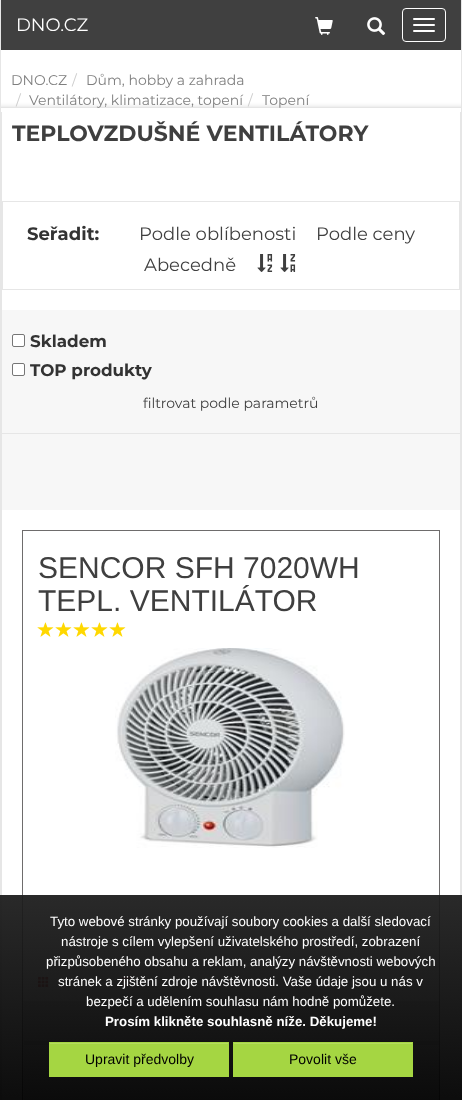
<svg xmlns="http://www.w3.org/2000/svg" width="462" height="1100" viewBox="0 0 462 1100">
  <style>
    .t1 { font: 18px Montserrat; fill: #fff; }
    .t2 { font: 14px Montserrat; fill: #7f7f7f; }
    .t3 { font: 14px Montserrat; fill: #ccc; }
    .t4 { font: bold 22px Montserrat; fill: #3f3f3f; }
    .t5 { font: bold 18px Montserrat; fill: #333; }
    .t6 { font: 18px Montserrat; fill: #3f3f3f; }
    .t7 { font: bold 16.75px Montserrat; fill: #333; }
    .t8 { font: 14px Montserrat; fill: #3f3f3f; }
    .t9 { font: 30px Liberation Sans; fill: #3f3f3f; }
    .t10 { font: 13.3px Liberation Sans; fill: #fff; }
    .t11 { font: bold 13.3px Liberation Sans; fill: #fff; }
    .t12 { font: 14px Liberation Sans; fill: #000; }
  </style>
  <defs>
    <linearGradient id="g1" gradientUnits="userSpaceOnUse" x1="231" y1="895" x2="231" y2="1100"><stop offset="0" stop-color="#1e1e1e" stop-opacity="0.95"/><stop offset="1" stop-color="#000" stop-opacity="0.95"/></linearGradient>
  </defs>
  <rect width="100%" height="100%" fill="#fff"/>
  <rect x="461" y="0" width="1" height="1100" fill="#e6e6e6"/>
  <rect x="0" y="0" width="1" height="1100" fill="#e6e6e6"/>
  <rect x="1" y="0" width="460" height="50" fill="#404040"/>
  <text x="16" y="31" class="t1">DNO.CZ</text>
  <image x="315" y="17" width="18" height="18" href="images/1.png"/>
  <image x="367" y="17" width="19" height="19" href="images/2.png"/>
  <rect x="402.5" y="8.5" width="43" height="33" rx="3.5" fill="none" stroke="#fff"/>
  <rect x="413" y="18" width="22" height="2" rx="1" fill="#fff"/>
  <rect x="413" y="24" width="22" height="2" rx="1" fill="#fff"/>
  <rect x="413" y="30" width="22" height="2" rx="1" fill="#fff"/>
  <image x="1" y="55" width="460" height="52" href="images/3.png"/>
  <rect x="1" y="107" width="460" height="1" fill="#e5e5e5"/>
  <text x="11" y="85" class="t2">DNO.CZ</text>
  <text x="72" y="85" class="t3">/</text>
  <text x="86" y="85" class="t2">Dům, hobby a zahrada</text>
  <text x="16" y="105" class="t3">/</text>
  <text x="29" y="105" class="t2">Ventilátory, klimatizace, topení</text>
  <text x="248" y="105" class="t3">/</text>
  <text x="262" y="105" class="t2">Topení</text>
  <rect x="460" y="112" width="1" height="988" fill="#e6e6e6"/>
  <rect x="1" y="112" width="1" height="988" fill="#e6e6e6"/>
  <text x="12" y="141" class="t4">TEPLOVZDUŠNÉ VENTILÁTORY</text>
  <rect x="2.5" y="201.5" width="457" height="88" fill="none" stroke="#e6e6e6"/>
  <text x="27" y="240" class="t5">Seřadit:</text>
  <text x="139" y="240" class="t6">Podle oblíbenosti</text>
  <text x="316" y="240" class="t6">Podle ceny</text>
  <text x="144" y="271" class="t6">Abecedně</text>
  <image x="257" y="254" width="16" height="18" href="images/4.png"/>
  <image x="280" y="254" width="16" height="18" href="images/5.png"/>
  <rect x="2" y="310" width="458" height="200" fill="#f7f7f7"/>
  <rect x="2" y="433" width="458" height="1" fill="#e6e6e6"/>
  <rect x="12.5" y="334.5" width="12" height="12" rx="1.5" fill="#fff" stroke="#767676"/>
  <text x="30" y="347" class="t7">Skladem</text>
  <rect x="12.5" y="363.5" width="12" height="12" rx="1.5" fill="#fff" stroke="#767676"/>
  <text x="30" y="376" class="t7">TOP produkty</text>
  <text x="143" y="408" class="t8">filtrovat podle parametrů</text>
  <rect x="22.5" y="530.5" width="417" height="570" fill="none" stroke="#6e6c6c"/>
  <text x="38" y="578" class="t9">SENCOR SFH 7020WH</text>
  <text x="38" y="611" class="t9">TEPL. VENTILÁTOR</text>
  <image x="37" y="622" width="17" height="15" href="images/6.png"/>
  <image x="55" y="622" width="17" height="15" href="images/6.png"/>
  <image x="73" y="622" width="17" height="15" href="images/6.png"/>
  <image x="91" y="622" width="17" height="15" href="images/6.png"/>
  <image x="109" y="622" width="17" height="15" href="images/6.png"/>
  <image x="115" y="648" width="230" height="200" href="images/7.png"/>
  <image x="38" y="976" width="11" height="11" href="images/8.png"/>
  <image x="121" y="976" width="11" height="11" href="images/9.png"/>
  <rect x="24" y="1045" width="415" height="55" fill="#e0e0e0"/>
  <rect x="23" y="1001" width="1" height="99" fill="#e8e8e8"/>
  <rect x="24" y="1041" width="415" height="4" fill="#c8c8c8"/>
  <rect x="24" y="1001" width="415" height="40" fill="#e0e0e0"/>
  <rect x="0" y="895" width="462" height="205" fill="url(#g1)"/>
  <text x="50" y="926" class="t10">Tyto webové stránky používají soubory cookies a další sledovací</text>
  <text x="61" y="946" class="t10">nástroje s cílem vylepšení uživatelského prostředí, zobrazení</text>
  <text x="46" y="966" class="t10">přizpůsobeného obsahu a reklam, analýzy návštěvnosti webových</text>
  <text x="58" y="986" class="t10">stránek a zjištění zdroje návštěvnosti. Vaše údaje jsou u nás v</text>
  <text x="86" y="1006" class="t10">bezpečí a udělením souhlasu nám hodně pomůžete.</text>
  <text x="105" y="1026" class="t11">Prosím klikněte souhlasně níže. Děkujeme!</text>
  <rect x="49" y="1042" width="180" height="35" fill="#a5d642"/>
  <rect x="50" y="1043" width="178" height="1" fill="#b3dc5e"/>
  <text x="85" y="1064" class="t12">Upravit předvolby</text>
  <rect x="233" y="1042" width="180" height="35" fill="#a5d642"/>
  <rect x="234" y="1043" width="178" height="1" fill="#b3dc5e"/>
  <text x="289" y="1064" class="t12">Povolit vše</text>
</svg>
